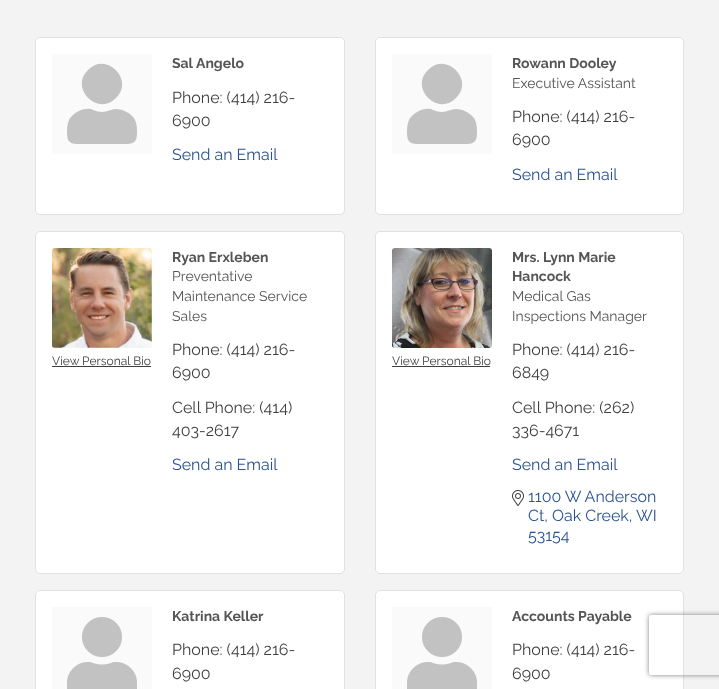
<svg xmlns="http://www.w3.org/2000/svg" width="719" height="689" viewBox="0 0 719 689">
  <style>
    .t1 { font: bold 14px Raleway; fill: #555; }
    .t2 { font: 16px Raleway; fill: #3f3f3f; }
    .t3 { font: 16px Raleway; fill: #295290; }
    .t4 { font: 14px Raleway; fill: #555; }
    .t5 { font: 12px Raleway; fill: #3f3f3f; }
  </style>
  <defs>
    <clipPath id="clip1"><path d="M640 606H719V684H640ZM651 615H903C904 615 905 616 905 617V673C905 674 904 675 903 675H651C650 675 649 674 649 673V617C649 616 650 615 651 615Z" clip-rule="evenodd"/></clipPath>
  </defs>
  <rect width="100%" height="100%" fill="#f3f3f3"/>
  <rect x="35" y="37" width="310" height="178" rx="5" fill="#fff"/>
  <rect x="35.5" y="37.5" width="309" height="177" rx="4.5" fill="none" stroke="#0000001f"/>
  <rect x="52" y="54" width="100" height="100" fill="#fafafa"/>
  <path d="M116 98C98 117 69 88 88 70C106 51 135 80 116 98ZM116 109C123 109 130 113 134 118C137 123 137 128 137 133C137 145 131 144 120 144H84C73 144 67 145 67 133C67 129 67 124 69 120C73 113 82 108 91 109L93 110C96 111 99 112 102 112C107 112 111 109 116 109Z" fill="#c2c2c2"/>
  <text x="172" y="68" class="t1">Sal</text>
  <text x="196" y="68" class="t1">Angelo</text>
  <text x="172" y="103" class="t2">Phone: (414) 216-</text>
  <text x="172" y="126" class="t2">6900</text>
  <text x="172" y="160" class="t3">Send an Email</text>
  <rect x="375" y="37" width="309" height="178" rx="5" fill="#fff"/>
  <rect x="375.5" y="37.5" width="308" height="177" rx="4.5" fill="none" stroke="#0000001f"/>
  <rect x="392" y="54" width="100" height="100" fill="#fafafa"/>
  <path d="M456 98C438 117 409 88 428 70C446 51 475 80 456 98ZM456 109C463 109 470 113 474 118C477 123 477 128 477 133C477 145 471 144 460 144H424C413 144 407 145 407 133C407 129 407 124 409 120C413 113 422 108 431 109L433 110C436 111 439 112 442 112C447 112 451 109 456 109Z" fill="#c2c2c2"/>
  <text x="512" y="68" class="t1">Rowann Dooley</text>
  <text x="512" y="88" class="t4">Executive Assistant</text>
  <text x="512" y="122" class="t2">Phone: (414) 216-</text>
  <text x="512" y="145" class="t2">6900</text>
  <text x="512" y="180" class="t3">Send an Email</text>
  <rect x="35" y="231" width="310" height="343" rx="5" fill="#fff"/>
  <rect x="35.5" y="231.5" width="309" height="342" rx="4.5" fill="none" stroke="#0000001f"/>
  <image x="52" y="248" width="100" height="100" href="images/1.png"/>
  <text x="52" y="365" class="t5">View Personal Bio</text>
  <rect x="52" y="366" width="99" height="1" fill="#3f3f3f"/>
  <text x="172" y="262" class="t1">Ryan Erxleben</text>
  <text x="172" y="281" class="t4">Preventative</text>
  <text x="172" y="301" class="t4">Maintenance Service</text>
  <text x="172" y="321" class="t4">Sales</text>
  <text x="172" y="355" class="t2">Phone: (414) 216-</text>
  <text x="172" y="378" class="t2">6900</text>
  <text x="172" y="413" class="t2">Cell Phone: (414)</text>
  <text x="172" y="436" class="t2">403-2617</text>
  <text x="172" y="470" class="t3">Send an Email</text>
  <rect x="375" y="231" width="309" height="343" rx="5" fill="#fff"/>
  <rect x="375.5" y="231.5" width="308" height="342" rx="4.5" fill="none" stroke="#0000001f"/>
  <image x="392" y="248" width="100" height="100" href="images/2.png"/>
  <text x="392" y="365" class="t5">View Personal Bio</text>
  <rect x="392" y="366" width="98" height="1" fill="#3f3f3f"/>
  <text x="512" y="262" class="t1">Mrs. Lynn Marie</text>
  <text x="512" y="281" class="t1">Hancock</text>
  <text x="512" y="301" class="t4">Medical Gas</text>
  <text x="512" y="321" class="t4">Inspections Manager</text>
  <text x="512" y="355" class="t2">Phone: (414) 216-</text>
  <text x="512" y="378" class="t2">6849</text>
  <text x="512" y="413" class="t2">Cell Phone: (262)</text>
  <text x="512" y="436" class="t2">336-4671</text>
  <text x="512" y="470" class="t3">Send an Email</text>
  <image x="512" y="490" width="12" height="16" href="images/3.png"/>
  <text x="528" y="502" class="t3">1100 W Anderson</text>
  <text x="528" y="521" class="t3">Ct, Oak Creek,</text>
  <text x="636" y="521" class="t3">WI</text>
  <text x="528" y="541" class="t3">53154</text>
  <rect x="35" y="590" width="310" height="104" rx="5" fill="#fff"/>
  <rect x="35.5" y="590.5" width="309" height="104" rx="4.5" fill="none" stroke="#0000001f"/>
  <rect x="52" y="607" width="100" height="82" fill="#fafafa"/>
  <image x="67" y="617" width="70" height="72" href="images/4.png"/>
  <text x="172" y="621" class="t1">Katrina Keller</text>
  <text x="172" y="655" class="t2">Phone: (414) 216-</text>
  <text x="172" y="679" class="t2">6900</text>
  <rect x="375" y="590" width="309" height="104" rx="5" fill="#fff"/>
  <rect x="375.5" y="590.5" width="308" height="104" rx="4.5" fill="none" stroke="#0000001f"/>
  <rect x="392" y="607" width="100" height="82" fill="#fafafa"/>
  <image x="407" y="617" width="70" height="72" href="images/4.png"/>
  <text x="512" y="621" class="t1">Accounts Payable</text>
  <text x="512" y="655" class="t2">Phone: (414) 216-</text>
  <text x="512" y="679" class="t2">6900</text>
  <g clip-path="url(#clip1)">
    <rect x="649" y="615" width="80" height="60" rx="2" fill="#808080" filter="blur(2.5px)"/>
  </g>
</svg>
